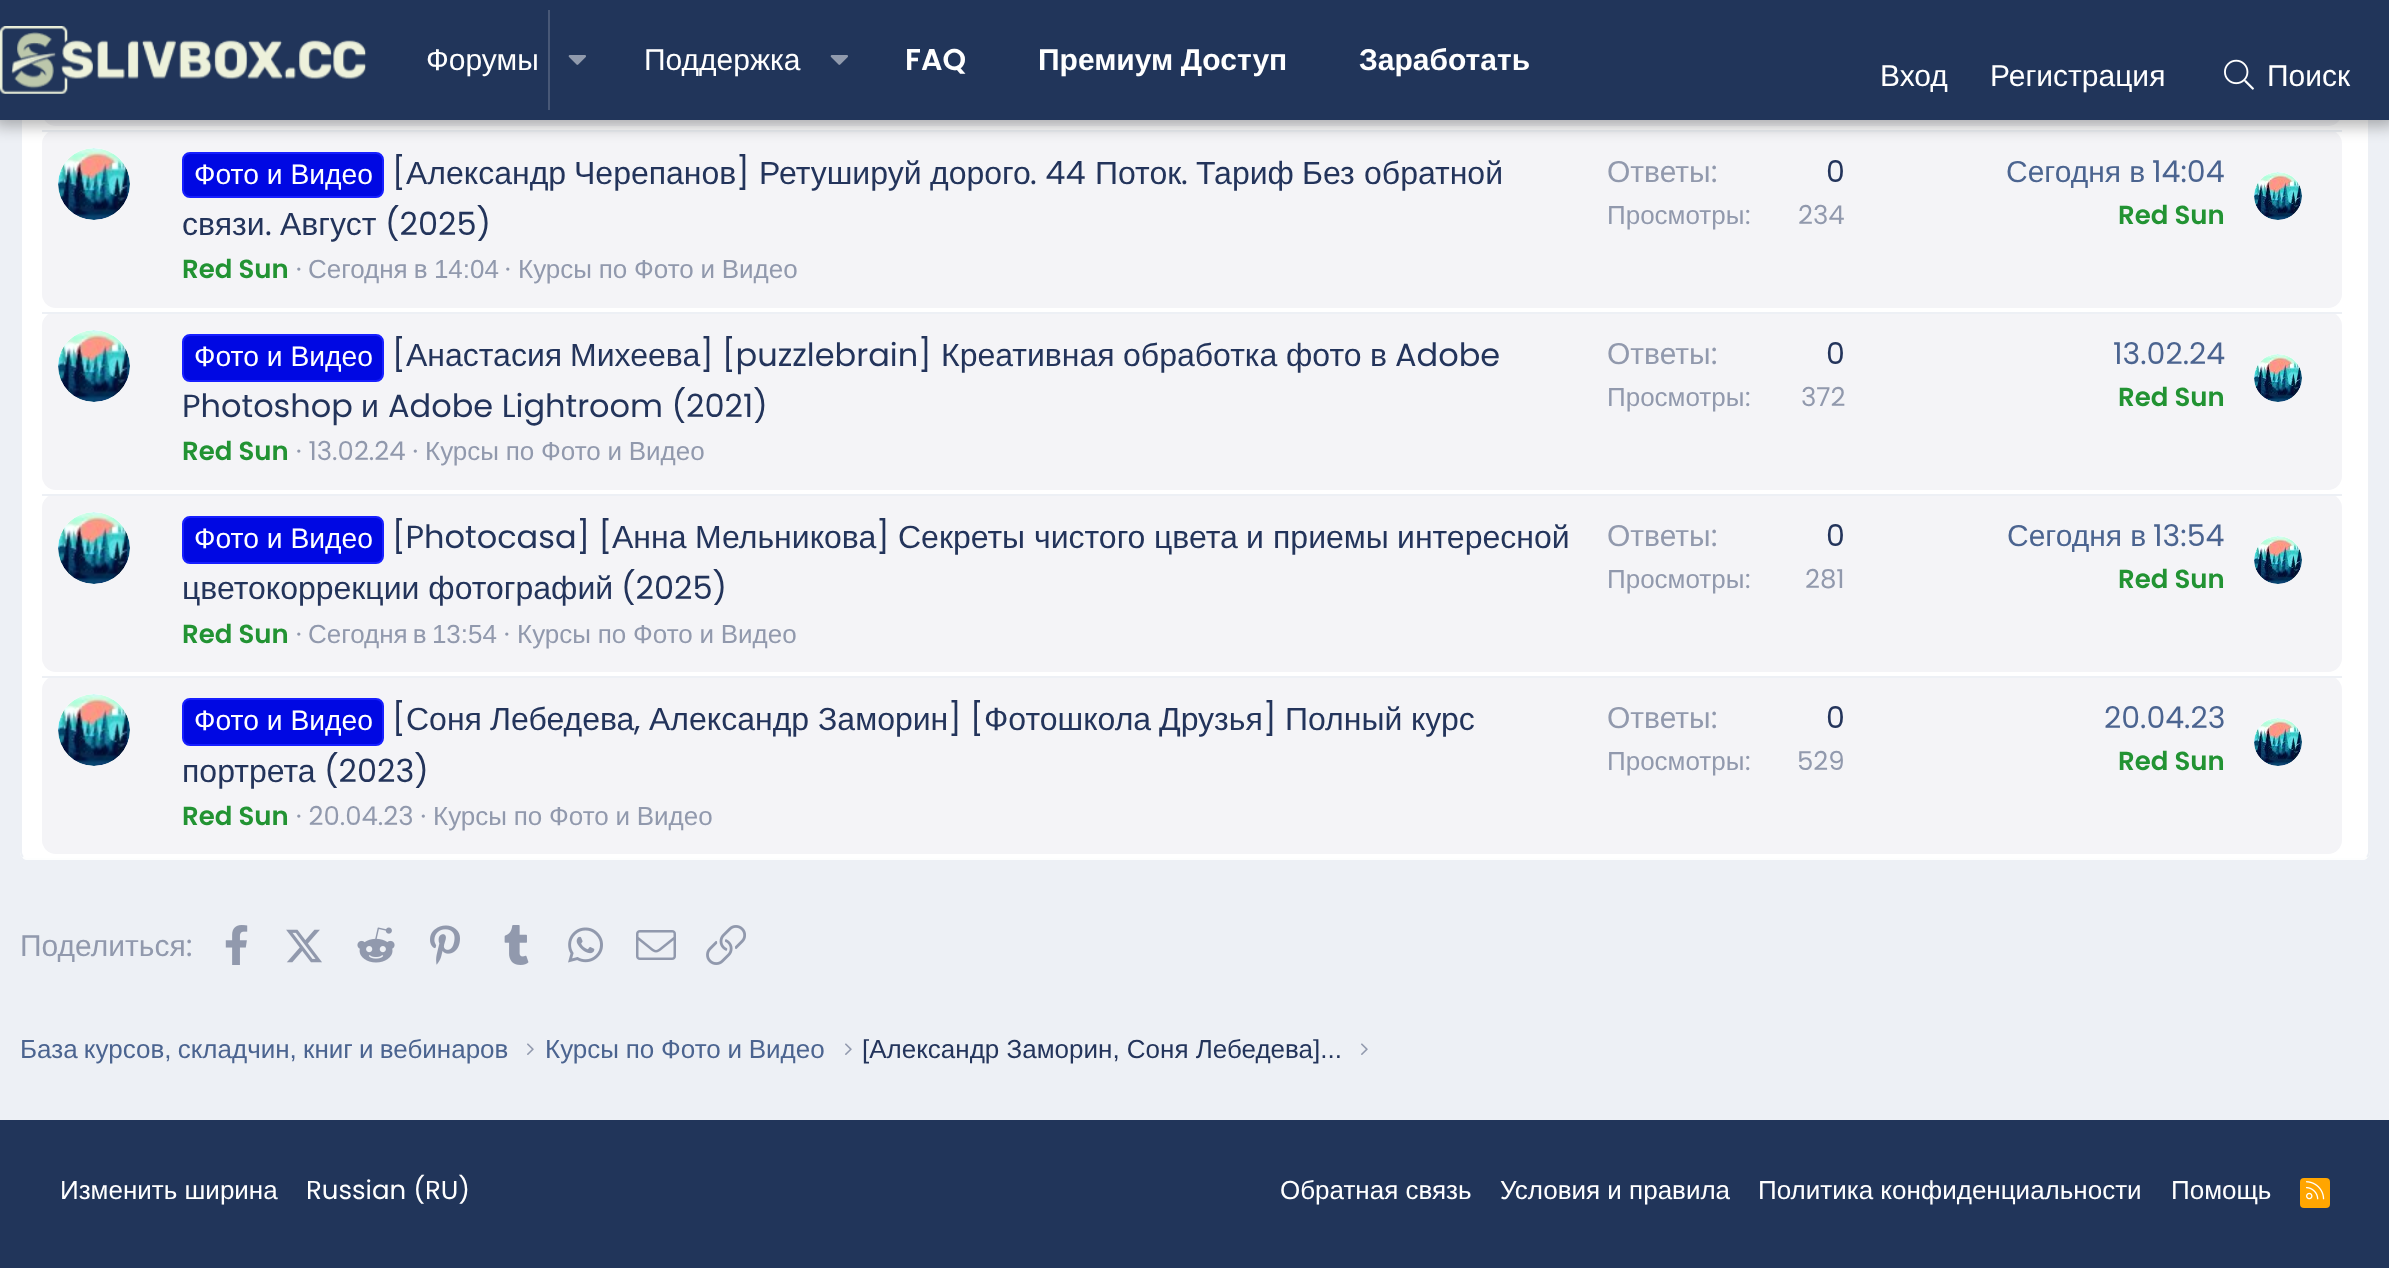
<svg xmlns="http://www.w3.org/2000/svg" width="2389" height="1268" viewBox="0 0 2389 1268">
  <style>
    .t1 { font: 30px Liberation Sans; fill: #fff; }
    .t2 { font: 600 30px Poppins; fill: #fff; }
    .t3 { font: bold 30px Liberation Sans; fill: #fff; }
    .t4 { font: 28.25px Liberation Sans; fill: #fff; }
    .t5 { font: 32px Poppins; fill: #23345b; }
    .t6 { font: 32px Liberation Sans; fill: #23345b; }
    .t7 { font: 600 26px Poppins; fill: #229333; }
    .t8 { font: 26px Poppins; fill: #9199ad; }
    .t9 { font: 26px Liberation Sans; fill: #9199ad; }
    .t10 { font: 30px Liberation Sans; fill: #9199ad; }
    .t11 { font: 30px Poppins; fill: #9199ad; }
    .t12 { font: 30px Poppins; fill: #23345b; }
    .t13 { font: 30px Liberation Sans; fill: #4b6490; }
    .t14 { font: 30px Poppins; fill: #4b6490; }
    .t15 { font: 26px Liberation Sans; fill: #4b6490; }
    .t16 { font: 26px Liberation Sans; fill: #23345b; }
    .t17 { font: 26px Liberation Sans; fill: #fff; }
    .t18 { font: 26px Poppins; fill: #fff; }
  </style>
  <rect width="100%" height="100%" fill="#edf0f5"/>
  <rect x="20" y="-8" width="2350" height="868" rx="8" fill="#fff"/>
  <path d="M2367 857C2365.5 858.5 2364 859 2362 859H28C26 859 24.5 858.5 23 857" fill="none" stroke="#fdfefe" stroke-width="2"/>
  <path d="M23 857C21.5 855.5 21 854 21 852V-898C21-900 21.5-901.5 23-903C24.5-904.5 26-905 28-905H2362C2364-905 2365.5-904.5 2367-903C2368.5-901.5 2369-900 2369-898V852C2369 854 2368.5 855.5 2367 857" fill="none" stroke="#edf0f5" stroke-width="2"/>
  <rect x="42" y="-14" width="2300" height="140" rx="14" fill="#f4f4f7"/>
  <rect x="42" y="130" width="2300" height="178" rx="14" fill="#f4f4f7"/>
  <rect x="42" y="130" width="2300" height="2" fill="#edf0f5"/>
  <circle cx="94" cy="184" r="36" fill="#fff"/>
  <image x="58" y="148" width="72" height="72" href="images/4.png"/>
  <rect x="-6" y="-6" width="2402" height="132" fill="#0000004d" filter="blur(8px)"/>
  <rect x="0" y="0" width="2389" height="120" fill="#21355a"/>
  <image x="0" y="26" width="367" height="68" href="images/1.png"/>
  <text x="426" y="70" class="t1">Форумы</text>
  <rect x="548" y="10" width="2" height="100" fill="#485877"/>
  <image x="568" y="55" width="18" height="10" href="images/2.png"/>
  <text x="644" y="70" class="t1">Поддержка</text>
  <image x="830" y="55" width="18" height="10" href="images/2.png"/>
  <text x="905" y="70" class="t2">FAQ</text>
  <text x="1038" y="70" word-spacing="-1" class="t3">Премиум Доступ</text>
  <text x="1359" y="70" class="t3">Заработать</text>
  <text x="1880" y="86" class="t1">Вход</text>
  <text x="1990" y="86" class="t1">Регистрация</text>
  <image x="2224" y="59" width="30" height="31" href="images/3.png"/>
  <text x="2267" y="86" class="t1">Поиск</text>
  <rect x="183" y="153" width="200" height="44" rx="7" fill="#0008e3" stroke="#171fff" stroke-width="2"/>
  <text x="194" y="184" class="t4">Фото и Видео</text>
  <text x="392" y="184" class="t5">[</text>
  <text x="406" y="184" class="t6">Александр</text>
  <text x="574" y="184" class="t6">Черепанов</text>
  <text x="736" y="184" class="t5">]</text>
  <text x="759" y="184" class="t6">Ретушируй</text>
  <text x="930" y="184" class="t6">дорого</text>
  <text x="1030" y="184" class="t5">. 44</text>
  <text x="1095" y="184" class="t6">Поток</text>
  <text x="1181" y="184" class="t5">.</text>
  <text x="1196" y="184" class="t6">Тариф</text>
  <text x="1302" y="184" class="t6">Без</text>
  <text x="1364" y="184" class="t6">обратной</text>
  <text x="182" y="235" class="t6">связи</text>
  <text x="265" y="235" class="t5">.</text>
  <text x="280" y="235" class="t6">Август</text>
  <text x="385" y="235" class="t5">(2025)</text>
  <text x="182" y="278" class="t7">Red Sun</text>
  <text x="296" y="278" class="t8">·</text>
  <text x="308" y="278" word-spacing="-1" class="t9">Сегодня в 14:04</text>
  <text x="505" y="278" class="t8">·</text>
  <text x="518" y="278" word-spacing="-0.5" class="t9">Курсы по Фото и Видео</text>
  <text x="1607" y="182" class="t10">Ответы</text>
  <text x="1711" y="182" class="t11">:</text>
  <text x="1826" y="182" class="t12">0</text>
  <text x="1607" y="224" class="t9">Просмотры</text>
  <text x="1745" y="224" class="t8">:</text>
  <text x="1798" y="224" class="t8">234</text>
  <text x="2006" y="182" class="t13">Сегодня в</text>
  <text x="2152" y="182" class="t14">14:04</text>
  <text x="2118" y="224" class="t7">Red Sun</text>
  <circle cx="2278" cy="196" r="24" fill="#fff"/>
  <image x="2254" y="172" width="48" height="48" href="images/5.png"/>
  <rect x="42" y="312" width="2300" height="178" rx="14" fill="#f4f4f7"/>
  <rect x="42" y="312" width="2300" height="2" fill="#edf0f5"/>
  <circle cx="94" cy="366" r="36" fill="#fff"/>
  <image x="58" y="330" width="72" height="72" href="images/6.png"/>
  <rect x="183" y="335" width="200" height="46" rx="7" fill="#0008e3" stroke="#171fff" stroke-width="2"/>
  <text x="194" y="366" class="t4">Фото и Видео</text>
  <text x="392" y="366" class="t5">[</text>
  <text x="406" y="366" class="t6">Анастасия</text>
  <text x="570" y="366" class="t6">Михеева</text>
  <text x="700" y="366" class="t5">] [puzzlebrain]</text>
  <text x="941" y="366" class="t6">Креативная</text>
  <text x="1123" y="366" class="t6">обработка</text>
  <text x="1286" y="366" class="t6">фото</text>
  <text x="1370" y="366" class="t6">в</text>
  <text x="1395" y="366" class="t5">Adobe</text>
  <text x="182" y="417" class="t5">Photoshop</text>
  <text x="361" y="417" class="t6">и</text>
  <text x="388" y="417" class="t5">Adobe Lightroom (2021)</text>
  <text x="182" y="460" class="t7">Red Sun</text>
  <text x="296" y="460" class="t8">· 13.02.24 ·</text>
  <text x="425" y="460" word-spacing="-0.5" class="t9">Курсы по Фото и Видео</text>
  <text x="1607" y="364" class="t10">Ответы</text>
  <text x="1711" y="364" class="t11">:</text>
  <text x="1826" y="364" class="t12">0</text>
  <text x="1607" y="406" class="t9">Просмотры</text>
  <text x="1745" y="406" class="t8">:</text>
  <text x="1801" y="406" class="t8">372</text>
  <text x="2113" y="364" class="t14">13.02.24</text>
  <text x="2118" y="406" class="t7">Red Sun</text>
  <circle cx="2278" cy="378" r="24" fill="#fff"/>
  <image x="2254" y="354" width="48" height="48" href="images/5.png"/>
  <rect x="42" y="494" width="2300" height="178" rx="14" fill="#f4f4f7"/>
  <rect x="42" y="494" width="2300" height="2" fill="#edf0f5"/>
  <circle cx="94" cy="548" r="36" fill="#fff"/>
  <image x="58" y="512" width="72" height="72" href="images/4.png"/>
  <rect x="183" y="517" width="200" height="46" rx="7" fill="#0008e3" stroke="#171fff" stroke-width="2"/>
  <text x="194" y="548" class="t4">Фото и Видео</text>
  <text x="392" y="548" class="t5">[Photocasa] [</text>
  <text x="612" y="548" class="t6">Анна</text>
  <text x="695" y="548" class="t6">Мельникова</text>
  <text x="876" y="548" class="t5">]</text>
  <text x="898" y="548" class="t6">Секреты</text>
  <text x="1034" y="548" class="t6">чистого</text>
  <text x="1154" y="548" class="t6">цвета</text>
  <text x="1246" y="548" class="t6">и</text>
  <text x="1273" y="548" class="t6">приемы</text>
  <text x="1397" y="548" class="t6">интересной</text>
  <text x="182" y="599" class="t6">цветокоррекции фотографий</text>
  <text x="621" y="599" class="t5">(2025)</text>
  <text x="182" y="643" class="t7">Red Sun</text>
  <text x="296" y="643" class="t8">·</text>
  <text x="308" y="643" word-spacing="-2" class="t9">Сегодня в 13:54</text>
  <text x="504" y="643" class="t8">·</text>
  <text x="517" y="643" word-spacing="-0.5" class="t9">Курсы по Фото и Видео</text>
  <text x="1607" y="546" class="t10">Ответы</text>
  <text x="1711" y="546" class="t11">:</text>
  <text x="1826" y="546" class="t12">0</text>
  <text x="1607" y="588" class="t9">Просмотры</text>
  <text x="1745" y="588" class="t8">:</text>
  <text x="1805" y="588" class="t8">281</text>
  <text x="2007" y="546" class="t13">Сегодня в</text>
  <text x="2153" y="546" class="t14">13:54</text>
  <text x="2118" y="588" class="t7">Red Sun</text>
  <circle cx="2278" cy="560" r="24" fill="#fff"/>
  <image x="2254" y="536" width="48" height="48" href="images/5.png"/>
  <rect x="42" y="676" width="2300" height="178" rx="14" fill="#f4f4f7"/>
  <rect x="42" y="676" width="2300" height="2" fill="#edf0f5"/>
  <circle cx="94" cy="730" r="36" fill="#fff"/>
  <image x="58" y="694" width="72" height="72" href="images/4.png"/>
  <rect x="183" y="699" width="200" height="46" rx="7" fill="#0008e3" stroke="#171fff" stroke-width="2"/>
  <text x="194" y="730" class="t4">Фото и Видео</text>
  <text x="392" y="730" class="t5">[</text>
  <text x="406" y="730" class="t6">Соня</text>
  <text x="490" y="730" class="t6">Лебедева</text>
  <text x="634" y="730" class="t5">,</text>
  <text x="649" y="730" class="t6">Александр</text>
  <text x="818" y="730" class="t6">Заморин</text>
  <text x="948" y="730" class="t5">] [</text>
  <text x="984" y="730" class="t6">Фотошкола</text>
  <text x="1159" y="730" class="t6">Друзья</text>
  <text x="1263" y="730" class="t5">]</text>
  <text x="1285" y="730" class="t6">Полный</text>
  <text x="1411" y="730" class="t6">курс</text>
  <text x="182" y="782" class="t6">портрета</text>
  <text x="324" y="782" class="t5">(2023)</text>
  <text x="182" y="825" class="t7">Red Sun</text>
  <text x="296" y="825" class="t8">· 20.04.23 ·</text>
  <text x="433" y="825" word-spacing="-0.5" class="t9">Курсы по Фото и Видео</text>
  <text x="1607" y="728" class="t10">Ответы</text>
  <text x="1711" y="728" class="t11">:</text>
  <text x="1826" y="728" class="t12">0</text>
  <text x="1607" y="770" class="t9">Просмотры</text>
  <text x="1745" y="770" class="t8">:</text>
  <text x="1797" y="770" class="t8">529</text>
  <text x="2104" y="728" class="t14">20.04.23</text>
  <text x="2118" y="770" class="t7">Red Sun</text>
  <circle cx="2278" cy="742" r="24" fill="#fff"/>
  <image x="2254" y="718" width="48" height="48" href="images/5.png"/>
  <text x="20" y="956" class="t10">Поделиться</text>
  <text x="186" y="956" class="t11">:</text>
  <image x="225" y="925" width="23" height="40" href="images/7.png"/>
  <image x="286" y="929" width="36" height="34" href="images/8.png"/>
  <image x="357" y="927" width="38" height="36" href="images/9.png"/>
  <image x="430" y="925" width="30" height="40" href="images/10.png"/>
  <image x="504" y="925" width="25" height="40" href="images/11.png"/>
  <image x="568" y="927" width="35" height="36" href="images/12.png"/>
  <image x="636" y="930" width="40" height="30" href="images/13.png"/>
  <image x="706" y="925" width="40" height="40" href="images/14.png"/>
  <text x="20" y="1058" word-spacing="-1" class="t15">База курсов, складчин, книг и вебинаров</text>
  <image x="527" y="1043" width="7" height="12" href="images/15.png"/>
  <text x="545" y="1058" word-spacing="-0.5" class="t15">Курсы по Фото и Видео</text>
  <image x="845" y="1043" width="7" height="12" href="images/15.png"/>
  <text x="862" y="1058" class="t16">[Александр Заморин, Соня Лебедева]...</text>
  <image x="1361" y="1043" width="7" height="12" href="images/15.png"/>
  <rect x="0" y="1120" width="2389" height="148" fill="#21355a"/>
  <text x="60" y="1199" class="t17">Изменить ширина</text>
  <text x="306" y="1199" class="t18">Russian (RU)</text>
  <text x="1280" y="1199" class="t17">Обратная связь</text>
  <text x="1500" y="1199" class="t17">Условия и правила</text>
  <text x="1758" y="1199" class="t17">Политика конфиденциальности</text>
  <text x="2171" y="1199" class="t17">Помощь</text>
  <rect x="2300" y="1178" width="30" height="30" rx="4" fill="#ffa500"/>
  <image x="2306" y="1181" width="19" height="19" href="images/16.png"/>
</svg>
